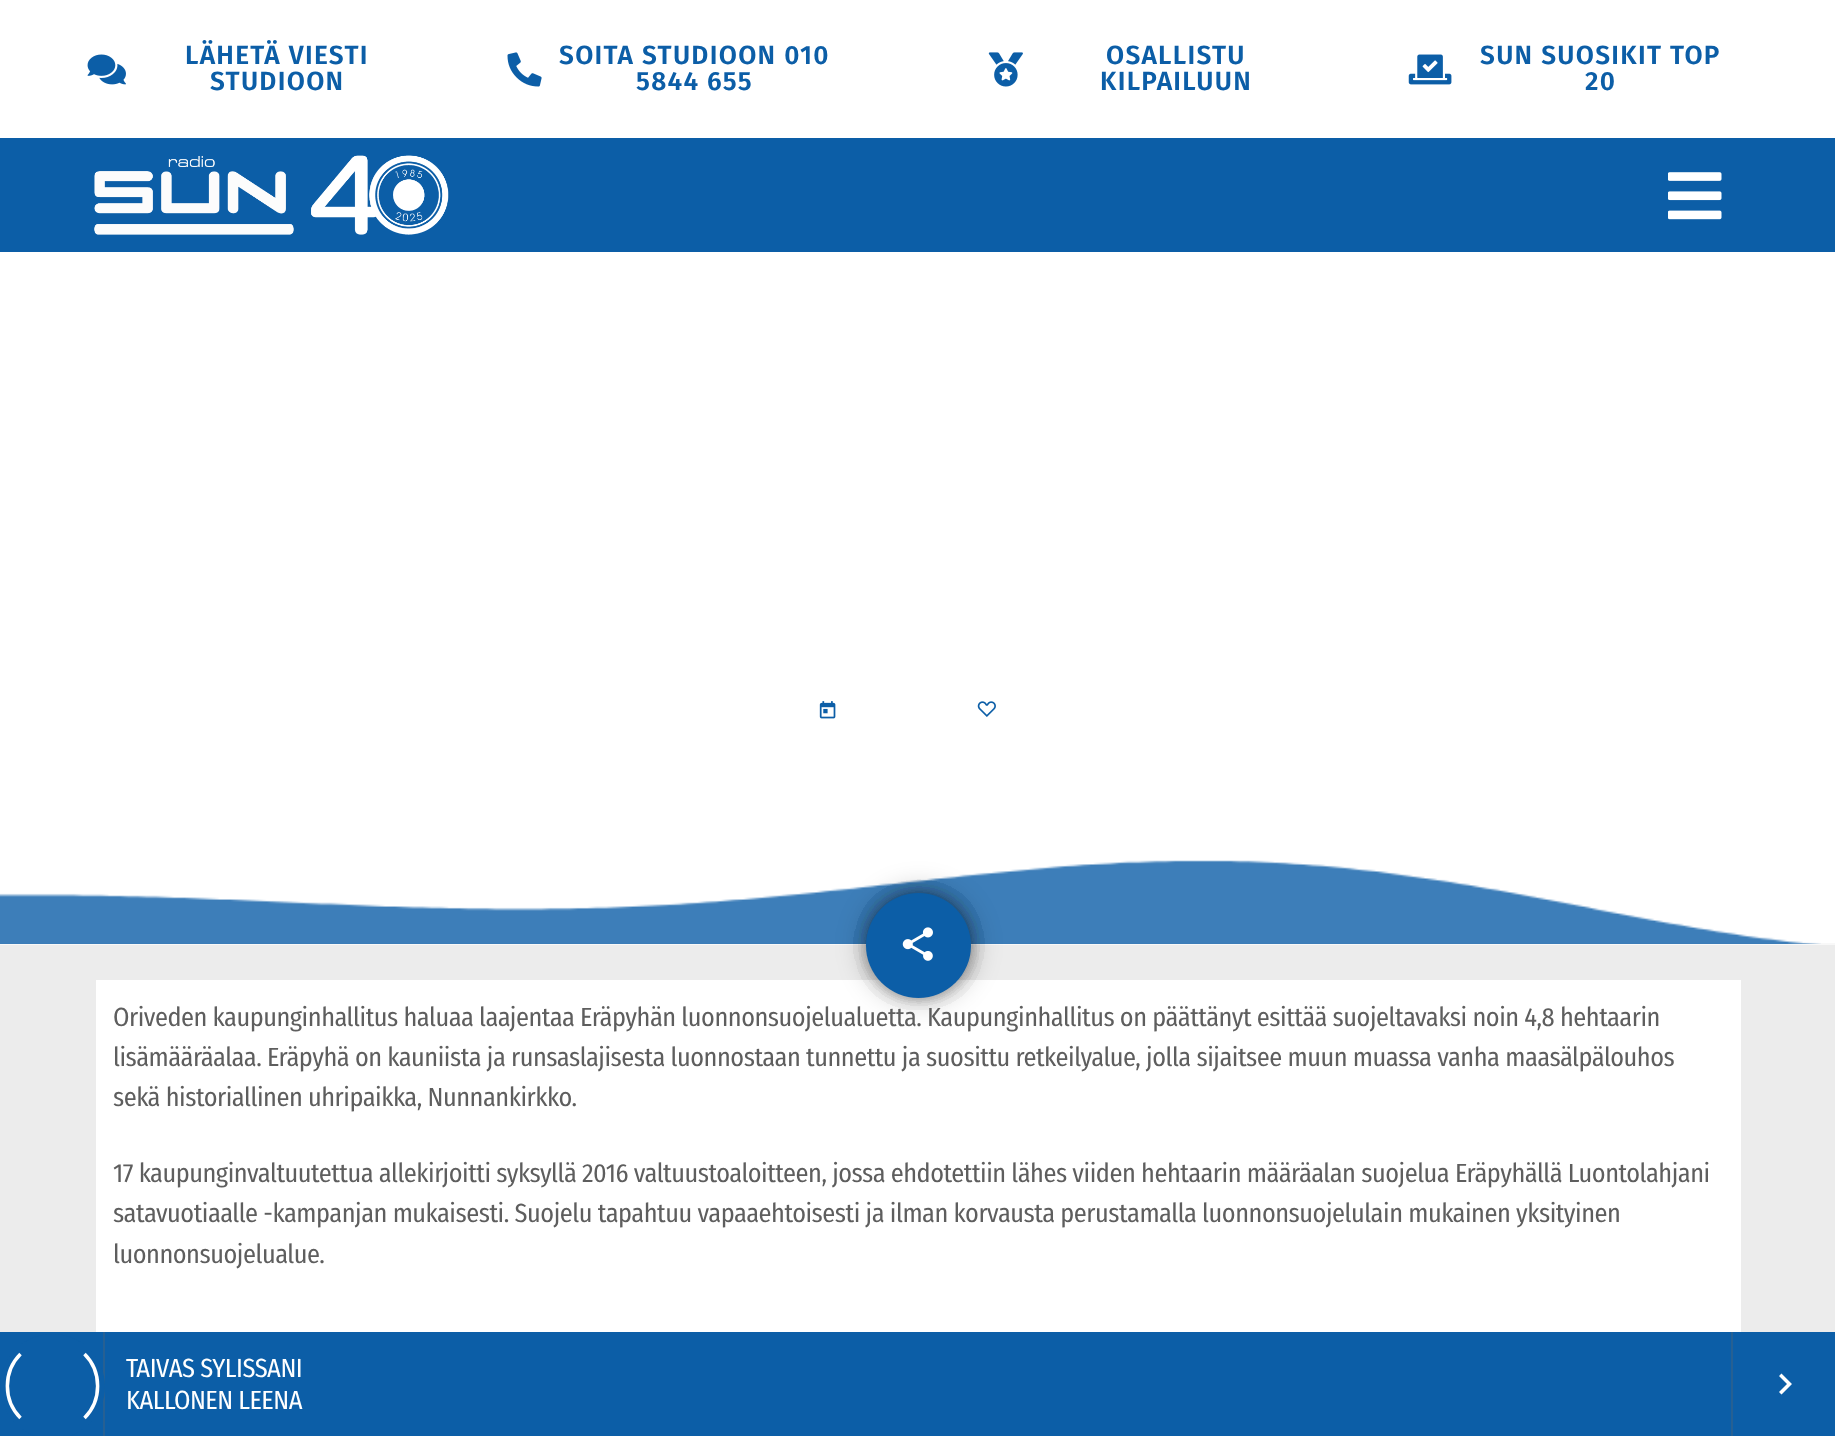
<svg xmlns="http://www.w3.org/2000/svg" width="1835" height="1436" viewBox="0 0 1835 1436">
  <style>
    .t1 { font: 600 26.25px Fira Sans; letter-spacing: 1.3px; fill: #0c5ea7; }
    .t2 { font: 26.25px Fira Sans Condensed; letter-spacing: -0.47px; fill: #5e5e5e; }
    .t3 { font: 26.25px Fira Sans Condensed; letter-spacing: -0.47px; fill: #fff; }
  </style>
  <rect width="100%" height="100%" fill="#f8f8f8"/>
  <rect x="0" y="0" width="1835" height="138" fill="#fff"/>
  <image x="87" y="54" width="39" height="31" href="images/1.png"/>
  <text x="185" y="64" class="t1">LÄHETÄ VIESTI</text>
  <text x="210" y="90" class="t1">STUDIOON</text>
  <image x="507" y="52" width="35" height="35" href="images/2.png"/>
  <text x="559" y="64" class="t1">SOITA STUDIOON 010</text>
  <text x="636" y="90" class="t1">5844 655</text>
  <image x="988" y="52" width="35" height="35" href="images/3.png"/>
  <text x="1106" y="64" class="t1">OSALLISTU</text>
  <text x="1100" y="90" class="t1">KILPAILUUN</text>
  <image x="1408" y="54" width="44" height="31" href="images/4.png"/>
  <text x="1480" y="64" class="t1">SUN SUOSIKIT TOP</text>
  <text x="1585" y="90" class="t1">20</text>
  <rect x="0" y="138" width="1835" height="114" fill="#0c5ea7"/>
  <image x="94" y="155" width="355" height="80" href="images/5.png"/>
  <image x="1668" y="172" width="54" height="48" href="images/6.png"/>
  <rect x="0" y="252" width="1835" height="691" fill="#fff"/>
  <image x="819" y="701" width="17" height="18" href="images/7.png"/>
  <image x="977" y="701" width="19" height="16" href="images/8.png"/>
  <image x="0" y="860" width="1821" height="84" href="images/9.png"/>
  <rect x="0" y="945" width="1835" height="387" fill="#ececec"/>
  <rect x="96" y="980" width="1645" height="352" fill="#fff"/>
  <rect x="861" y="887" width="116" height="116" rx="58" fill="#00000033" filter="blur(13px)"/>
  <rect x="879" y="905" width="80" height="80" rx="40" fill="#00000033" filter="blur(13px)"/>
  <rect x="879" y="905" width="80" height="80" rx="40" fill="#00000033" filter="blur(13px)"/>
  <rect x="879" y="905" width="80" height="80" rx="40" fill="#00000033" filter="blur(13px)"/>
  <rect x="879" y="905" width="80" height="80" rx="40" fill="#00000033" filter="blur(13px)"/>
  <rect x="879" y="905" width="80" height="80" rx="40" fill="#00000033" filter="blur(13px)"/>
  <rect x="879" y="905" width="80" height="80" rx="40" fill="#00000033" filter="blur(13px)"/>
  <rect x="879" y="905" width="80" height="80" rx="40" fill="#00000033" filter="blur(13px)"/>
  <rect x="879" y="905" width="80" height="80" rx="40" fill="#00000033" filter="blur(13px)"/>
  <circle cx="918.5" cy="945.5" r="52.5" fill="#0c5ea7"/>
  <image x="902" y="927" width="31" height="34" href="images/10.png"/>
  <text x="113" y="1026" class="t2">Oriveden kaupunginhallitus haluaa laajentaa Eräpyhän luonnonsuojelualuetta. Kaupunginhallitus on päättänyt esittää suojeltavaksi noin 4,8 hehtaarin</text>
  <text x="113" y="1066" class="t2">lisämääräalaa. Eräpyhä on kauniista ja runsaslajisesta luonnostaan tunnettu ja suosittu retkeilyalue, jolla sijaitsee muun muassa vanha maasälpälouhos</text>
  <text x="113" y="1106" class="t2">sekä historiallinen uhripaikka, Nunnankirkko.</text>
  <text x="113" y="1182" class="t2">17 kaupunginvaltuutettua allekirjoitti syksyllä 2016 valtuustoaloitteen, jossa ehdotettiin lähes viiden hehtaarin määräalan suojelua Eräpyhällä Luontolahjani</text>
  <text x="113" y="1222" class="t2">satavuotiaalle -kampanjan mukaisesti. Suojelu tapahtuu vapaaehtoisesti ja ilman korvausta perustamalla luonnonsuojelulain mukainen yksityinen</text>
  <text x="113" y="1263" class="t2">luonnonsuojelualue.</text>
  <rect x="0" y="1332" width="1835" height="104" fill="#0c5ea7"/>
  <rect x="103" y="1332" width="2" height="104" fill="#266093"/>
  <circle cx="52.5" cy="1386.5" r="52.5" fill="#0c5ea7"/>
  <path d="M84.5 1354C102 1371.5 102 1400.5 84.5 1418" fill="none" stroke="#fff" stroke-width="3.5"/>
  <path d="M20.5 1418C3 1400.5 3 1371.5 20.5 1354" fill="none" stroke="#fff" stroke-width="3.5"/>
  <text x="126" y="1377" class="t3">TAIVAS SYLISSANI</text>
  <text x="126" y="1409" class="t3">KALLONEN LEENA</text>
  <rect x="1731" y="1332" width="2" height="104" fill="#266093"/>
  <path d="M1779 1392L1787 1384L1779 1376L1781.5 1373.5L1792 1384L1781.5 1394.5Z" fill="#fff"/>
</svg>
